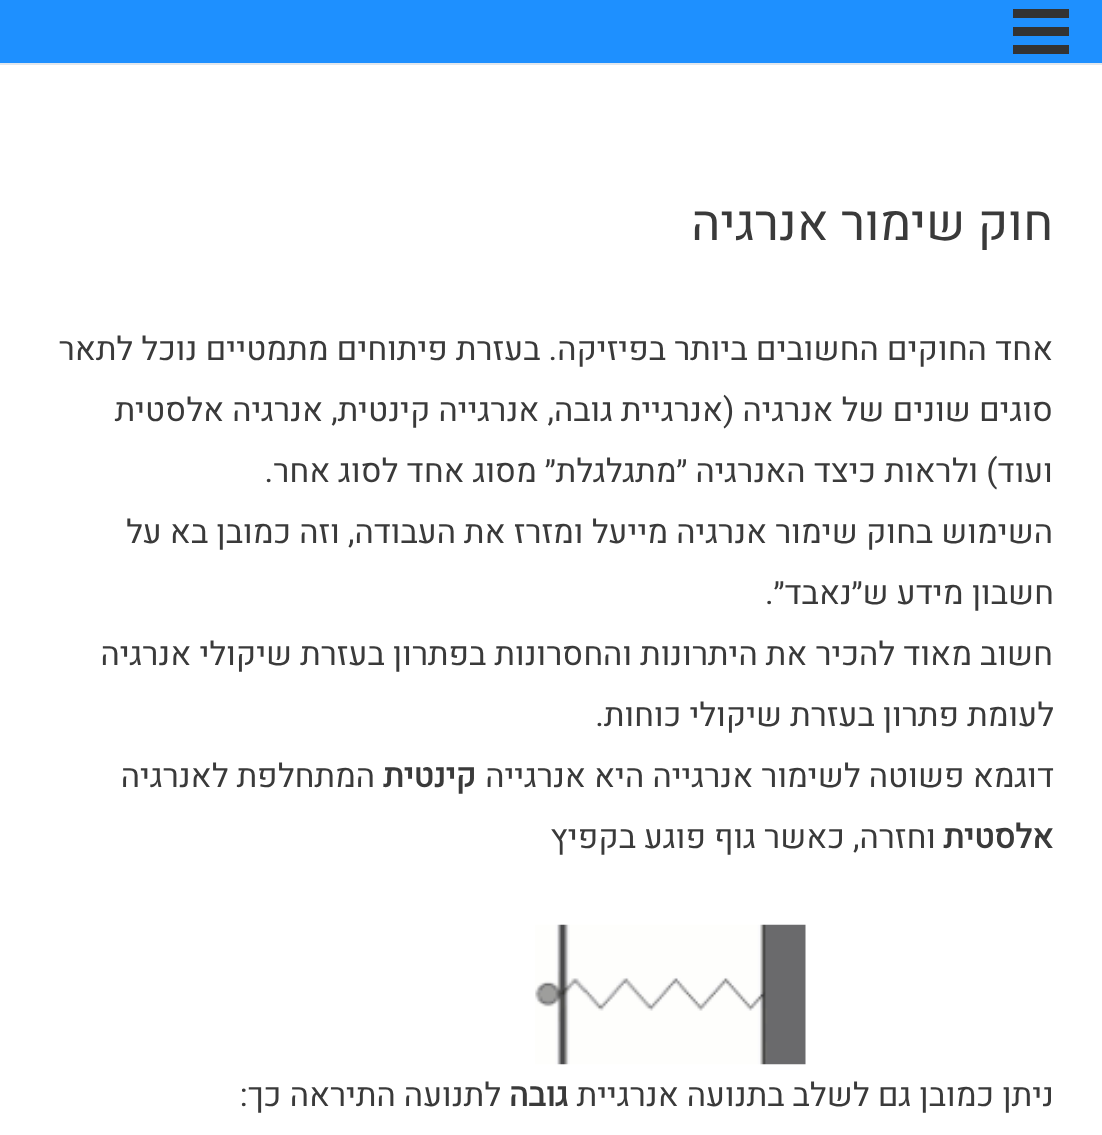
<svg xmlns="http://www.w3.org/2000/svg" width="1102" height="1135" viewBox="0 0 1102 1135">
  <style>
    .t1 { font: 49.5px Heebo; direction: rtl; fill: #3a3a3a; }
    .t2 { font: 32.8px Heebo; direction: rtl; fill: #3a3a3a; }
    .t3 { font: bold 32.8px Heebo; direction: rtl; fill: #3a3a3a; }
  </style>
  <rect width="100%" height="100%" fill="#fff"/>
  <rect x="0" y="0" width="1102" height="63" fill="#1e90ff"/>
  <rect x="0" y="63" width="1102" height="2" fill="#e2e7ed"/>
  <rect x="1013" y="9" width="56" height="9" fill="#333"/>
  <rect x="1013" y="27" width="56" height="9" fill="#333"/>
  <rect x="1013" y="45" width="56" height="9" fill="#333"/>
  <text x="1053" y="240" class="t1">חוק שימור אנרגיה</text>
  <text x="1053" y="360" class="t2">אחד החוקים החשובים ביותר בפיזיקה. בעזרת פיתוחים מתמטיים נוכל לתאר</text>
  <text x="1053" y="421" class="t2">סוגים שונים של אנרגיה (אנרגיית גובה, אנרגייה קינטית, אנרגיה אלסטית</text>
  <text x="1053" y="482" class="t2">ועוד) ולראות כיצד האנרגיה ״מתגלגלת״ מסוג אחד לסוג אחר.</text>
  <text x="1053" y="543" class="t2">השימוש בחוק שימור אנרגיה מייעל ומזרז את העבודה, וזה כמובן בא על</text>
  <text x="1054" y="604" class="t2">חשבון מידע ש״נאבד״.</text>
  <text x="1053" y="665" class="t2">חשוב מאוד להכיר את היתרונות והחסרונות בפתרון בעזרת שיקולי אנרגיה</text>
  <text x="1054" y="726" class="t2">לעומת פתרון בעזרת שיקולי כוחות.</text>
  <text x="1054" y="787" class="t2">דוגמא פשוטה לשימור אנרגייה היא אנרגייה</text>
  <text x="476" y="787" class="t3">קינטית</text>
  <text x="375" y="787" class="t2">המתחלפת לאנרגיה</text>
  <text x="1053" y="848" class="t3">אלסטית</text>
  <text x="936" y="848" class="t2">וחזרה, כאשר גוף פוגע בקפיץ</text>
  <image x="535" y="924" width="271" height="141" href="images/1.png"/>
  <text x="1054" y="1106" class="t2">ניתן כמובן גם לשלב בתנועה אנרגיית</text>
  <text x="568" y="1106" class="t3">גובה</text>
  <text x="501" y="1106" class="t2">לתנועה התיראה כך:</text>
</svg>
